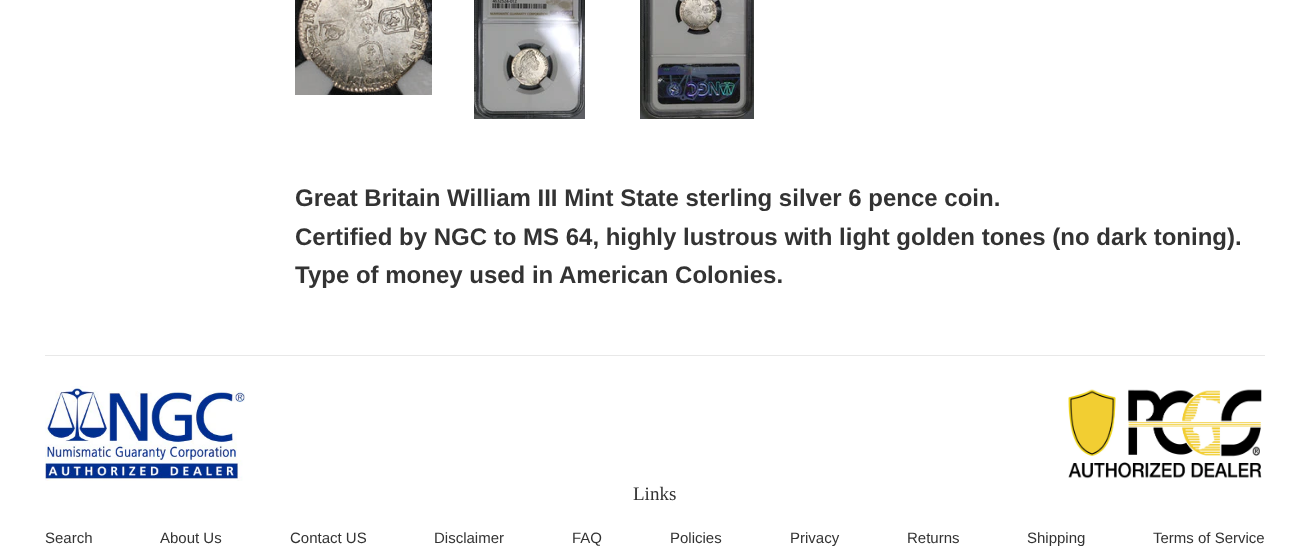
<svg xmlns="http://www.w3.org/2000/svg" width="1310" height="556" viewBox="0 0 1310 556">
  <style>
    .t1 { font: bold 24px Liberation Sans; fill: #333; }
    .t2 { font: 19px Liberation Serif; fill: #333; }
    .t3 { font: 15px Liberation Sans; fill: #333; }
  </style>
  <rect width="100%" height="100%" fill="#fff"/>
  <image x="295" y="0" width="137" height="95" href="images/1.png"/>
  <image x="474" y="0" width="111" height="119" href="images/2.png"/>
  <image x="640" y="0" width="114" height="119" href="images/3.png"/>
  <text x="295" y="206" class="t1">Great Britain William III Mint State sterling silver 6 pence coin.</text>
  <text x="295" y="245" class="t1">Certified by NGC to MS 64, highly lustrous with light golden tones (no dark toning).</text>
  <text x="295" y="283" class="t1">Type of money used in American Colonies.</text>
  <rect x="45" y="355" width="1220" height="1" fill="#e8e8e8"/>
  <image x="45" y="386" width="200" height="95" href="images/4.png"/>
  <image x="1068" y="389" width="194" height="90" href="images/5.png"/>
  <text x="633" y="500" class="t2">Links</text>
  <text x="45" y="543" class="t3">Search</text>
  <text x="160" y="543" class="t3">About Us</text>
  <text x="290" y="543" class="t3">Contact US</text>
  <text x="434" y="543" class="t3">Disclaimer</text>
  <text x="572" y="543" class="t3">FAQ</text>
  <text x="670" y="543" class="t3">Policies</text>
  <text x="790" y="543" class="t3">Privacy</text>
  <text x="907" y="543" class="t3">Returns</text>
  <text x="1027" y="543" class="t3">Shipping</text>
  <text x="1153" y="543" class="t3">Terms of Service</text>
</svg>
